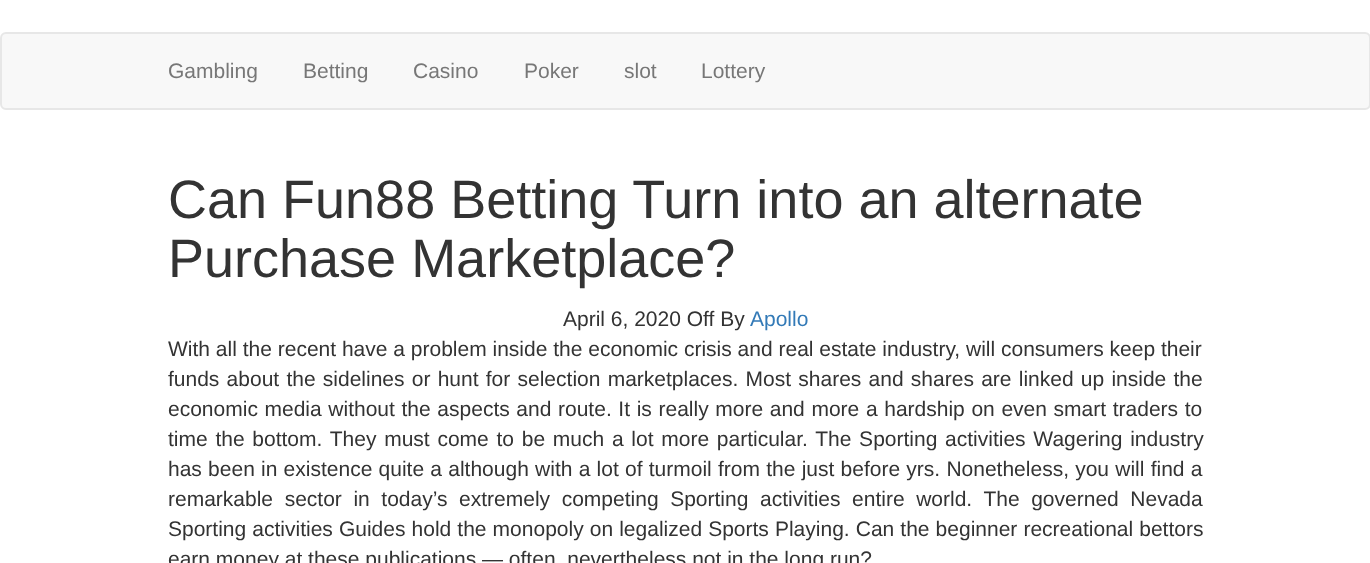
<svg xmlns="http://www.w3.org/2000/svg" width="1370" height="563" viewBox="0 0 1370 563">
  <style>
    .t1 { font: 21px Liberation Sans; fill: #777; }
    .t2 { font: 54px Liberation Sans; fill: #333; }
    .t3 { font: 21px Liberation Sans; fill: #333; }
    .t4 { font: 21px Liberation Sans; fill: #337ab7; }
  </style>
  <rect width="100%" height="100%" fill="#fff"/>
  <rect x="1" y="33" width="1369" height="76" rx="5" fill="#f8f8f8" stroke="#e7e7e7" stroke-width="2"/>
  <text x="168" y="78" class="t1">Gambling</text>
  <text x="303" y="78" class="t1">Betting</text>
  <text x="413" y="78" class="t1">Casino</text>
  <text x="524" y="78" class="t1">Poker</text>
  <text x="624" y="78" class="t1">slot</text>
  <text x="701" y="78" class="t1">Lottery</text>
  <text x="168" y="218" class="t2">Can Fun88 Betting Turn into an alternate</text>
  <text x="168" y="277" class="t2">Purchase Marketplace?</text>
  <text x="563" y="326" class="t3">April 6, 2020 Off By</text>
  <text x="750" y="326" class="t4">Apollo</text>
  <text x="168" y="356" class="t3">With all the recent have a problem inside the economic crisis and real estate industry, will consumers keep their</text>
  <text x="168" y="386" word-spacing="1.4" class="t3">funds about the sidelines or hunt for selection marketplaces. Most shares and shares are linked up inside the</text>
  <text x="168" y="416" word-spacing="0.8" class="t3">economic media without the aspects and route. It is really more and more a hardship on even smart traders to</text>
  <text x="168" y="446" word-spacing="1.9" class="t3">time the bottom. They must come to be much a lot more particular. The Sporting activities Wagering industry</text>
  <text x="168" y="476" word-spacing="0.4" class="t3">has been in existence quite a although with a lot of turmoil from the just before yrs. Nonetheless, you will find a</text>
  <text x="168" y="506" word-spacing="5.75" class="t3">remarkable sector in today’s extremely competing Sporting activities entire world. The governed Nevada</text>
  <text x="168" y="536" word-spacing="0.25" class="t3">Sporting activities Guides hold the monopoly on legalized Sports Playing. Can the beginner recreational bettors</text>
  <text x="168" y="566" class="t3">earn money at these publications — often, nevertheless not in the long run?</text>
</svg>
